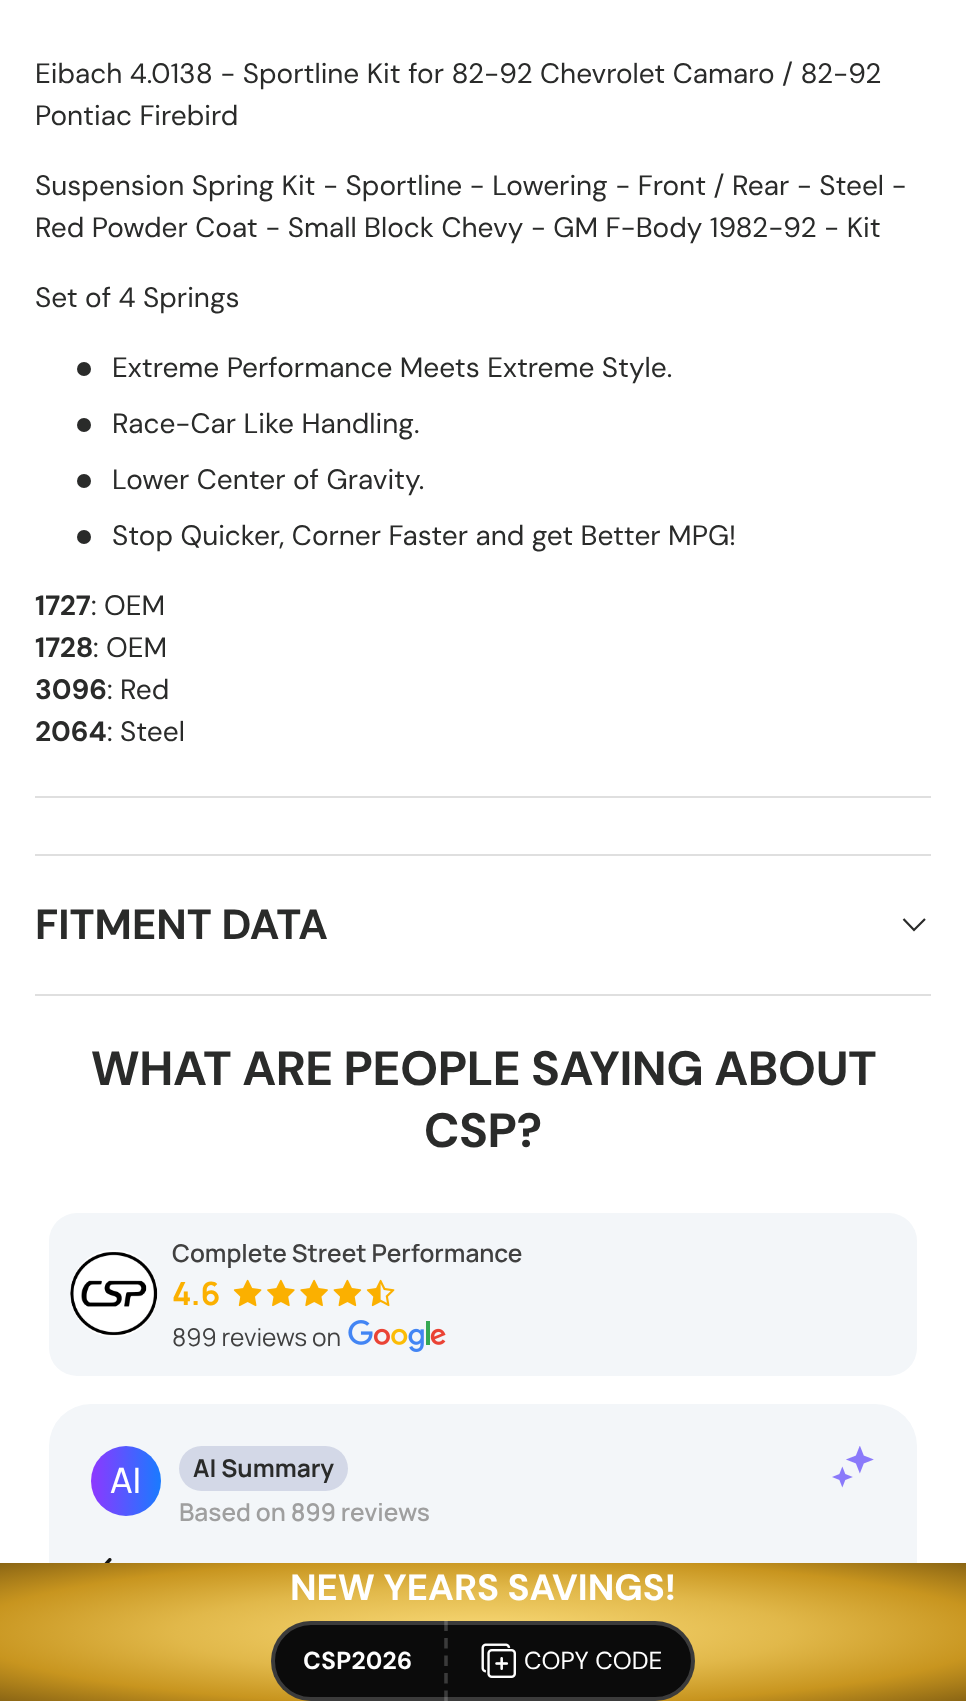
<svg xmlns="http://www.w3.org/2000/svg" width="966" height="1701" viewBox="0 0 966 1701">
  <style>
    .t1 { font: 28px DM Sans; fill: #2a2b2a; }
    .t2 { font: bold 28px DM Sans; fill: #2a2b2a; }
    .t3 { font: bold 42px 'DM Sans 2'; fill: #2a2b2a; }
    .t4 { font: bold 48px 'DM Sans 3'; fill: #2a2b2a; }
    .t5 { font: 600 24.5px Manrope; fill: #404040; }
    .t6 { font: bold 32px Manrope; fill: #fbb000; }
    .t7 { font: 24.5px Manrope; fill: #404040; }
    .t8 { font: 500 35px Manrope; fill: #fff; }
    .t9 { font: bold 24.5px Manrope; fill: #2a2b2a; }
    .t10 { font: 600 24.5px Manrope; fill: #9f9f9f; }
    .t11 { font: bold 36.6px 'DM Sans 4'; fill: #fff; }
    .t12 { font: bold 24.5px 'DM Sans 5'; fill: #fff; }
    .t13 { font: 24.5px 'DM Sans 2'; fill: #fff; }
  </style>
  <defs>
    <linearGradient id="g1" gradientUnits="userSpaceOnUse" x1="91" y1="1481" x2="161" y2="1481"><stop offset="0" stop-color="#8d38ff"/><stop offset="1" stop-color="#197bff"/></linearGradient>
    <radialGradient id="g2" gradientUnits="userSpaceOnUse" cx="0" cy="0" r="1" gradientTransform="matrix(683 0 0 98 483 1632)"><stop offset="0.03" stop-color="#f7d774"/><stop offset="0.45" stop-color="#e1b84a"/><stop offset="0.75" stop-color="#c8951f"/><stop offset="1" stop-color="#8a6514"/></radialGradient>
  </defs>
  <rect width="100%" height="100%" fill="#fff"/>
  <rect x="35" y="796" width="896" height="2" fill="#dfdfdf"/>
  <text x="35" y="83" class="t1">Eibach 4.0138 - Sportline Kit for 82-92 Chevrolet Camaro / 82-92</text>
  <text x="35" y="125" class="t1">Pontiac Firebird</text>
  <text x="35" y="195" class="t1">Suspension Spring Kit - Sportline - Lowering - Front / Rear - Steel -</text>
  <text x="35" y="237" class="t1">Red Powder Coat - Small Block Chevy - GM F-Body 1982-92 - Kit</text>
  <text x="35" y="307" class="t1">Set of 4 Springs</text>
  <circle cx="84" cy="369" r="7" fill="#2a2b2a"/>
  <text x="112" y="377" class="t1">Extreme Performance Meets Extreme Style.</text>
  <circle cx="84" cy="425" r="7" fill="#2a2b2a"/>
  <text x="112" y="433" class="t1">Race-Car Like Handling.</text>
  <circle cx="84" cy="481" r="7" fill="#2a2b2a"/>
  <text x="112" y="489" class="t1">Lower Center of Gravity.</text>
  <circle cx="84" cy="537" r="7" fill="#2a2b2a"/>
  <text x="112" y="545" class="t1">Stop Quicker, Corner Faster and get Better MPG!</text>
  <text x="35" y="615" class="t2">1727</text>
  <text x="91" y="615" class="t1">: OEM</text>
  <text x="35" y="657" class="t2">1728</text>
  <text x="93" y="657" class="t1">: OEM</text>
  <text x="35" y="699" class="t2">3096</text>
  <text x="107" y="699" class="t1">: Red</text>
  <text x="35" y="741" class="t2">2064</text>
  <text x="107" y="741" class="t1">: Steel</text>
  <rect x="35" y="854" width="896" height="2" fill="#dfdfdf"/>
  <rect x="35" y="994" width="896" height="2" fill="#dfdfdf"/>
  <text x="35" y="939" class="t3">FITMENT DATA</text>
  <path d="M925 919L914 930L903.5 919" fill="none" stroke="#2a2b2a" stroke-width="2.2"/>
  <text x="91" y="1085" class="t4">WHAT ARE PEOPLE SAYING ABOUT</text>
  <text x="424" y="1147" class="t4">CSP?</text>
  <rect x="49" y="1213" width="868" height="163" rx="28" fill="#f3f6f9"/>
  <image x="70" y="1250" width="88" height="87" href="images/1.png"/>
  <text x="172" y="1262" class="t5">Complete Street Performance</text>
  <text x="172" y="1305" class="t6">4.6</text>
  <image x="233" y="1279" width="29" height="28" href="images/2.png"/>
  <image x="267" y="1279" width="28" height="28" href="images/3.png"/>
  <image x="300" y="1279" width="28" height="28" href="images/4.png"/>
  <image x="333" y="1279" width="29" height="28" href="images/5.png"/>
  <image x="366" y="1279" width="29" height="28" href="images/6.png"/>
  <text x="172" y="1346" class="t7">899 reviews on</text>
  <image x="348" y="1320" width="98" height="32" href="images/7.png"/>
  <rect x="49" y="1404" width="868" height="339" rx="42" fill="#f3f6f9"/>
  <circle cx="126" cy="1481" r="35" fill="url(#g1)"/>
  <text x="110" y="1493" class="t8">AI</text>
  <rect x="179" y="1446" width="169" height="45" rx="22.5" fill="#d3d8e7"/>
  <text x="193" y="1477" class="t9">AI Summary</text>
  <text x="179" y="1521" class="t10">Based on 899 reviews</text>
  <image x="832" y="1446" width="42" height="42" href="images/8.png"/>
  <image x="104" y="1558" width="8" height="5" href="images/9.png"/>
  <rect x="0" y="1563" width="966" height="138" fill="url(#g2)"/>
  <text x="290" y="1600" class="t11">NEW YEARS SAVINGS!</text>
  <rect x="271" y="1621" width="424" height="80" rx="40" fill="#0b0b0b"/>
  <rect x="273" y="1623" width="420" height="76" rx="38" fill="none" stroke="#ffffff33" stroke-width="4"/>
  <text x="303" y="1669" class="t12">CSP2026</text>
  <path d="M446 1620.5V1701" fill="none" stroke="#ffffff33" stroke-width="3.5" stroke-dasharray="10.5 7"/>
  <image x="481" y="1643" width="35" height="35" href="images/10.png"/>
  <text x="524" y="1669" class="t13">COPY CODE</text>
</svg>
